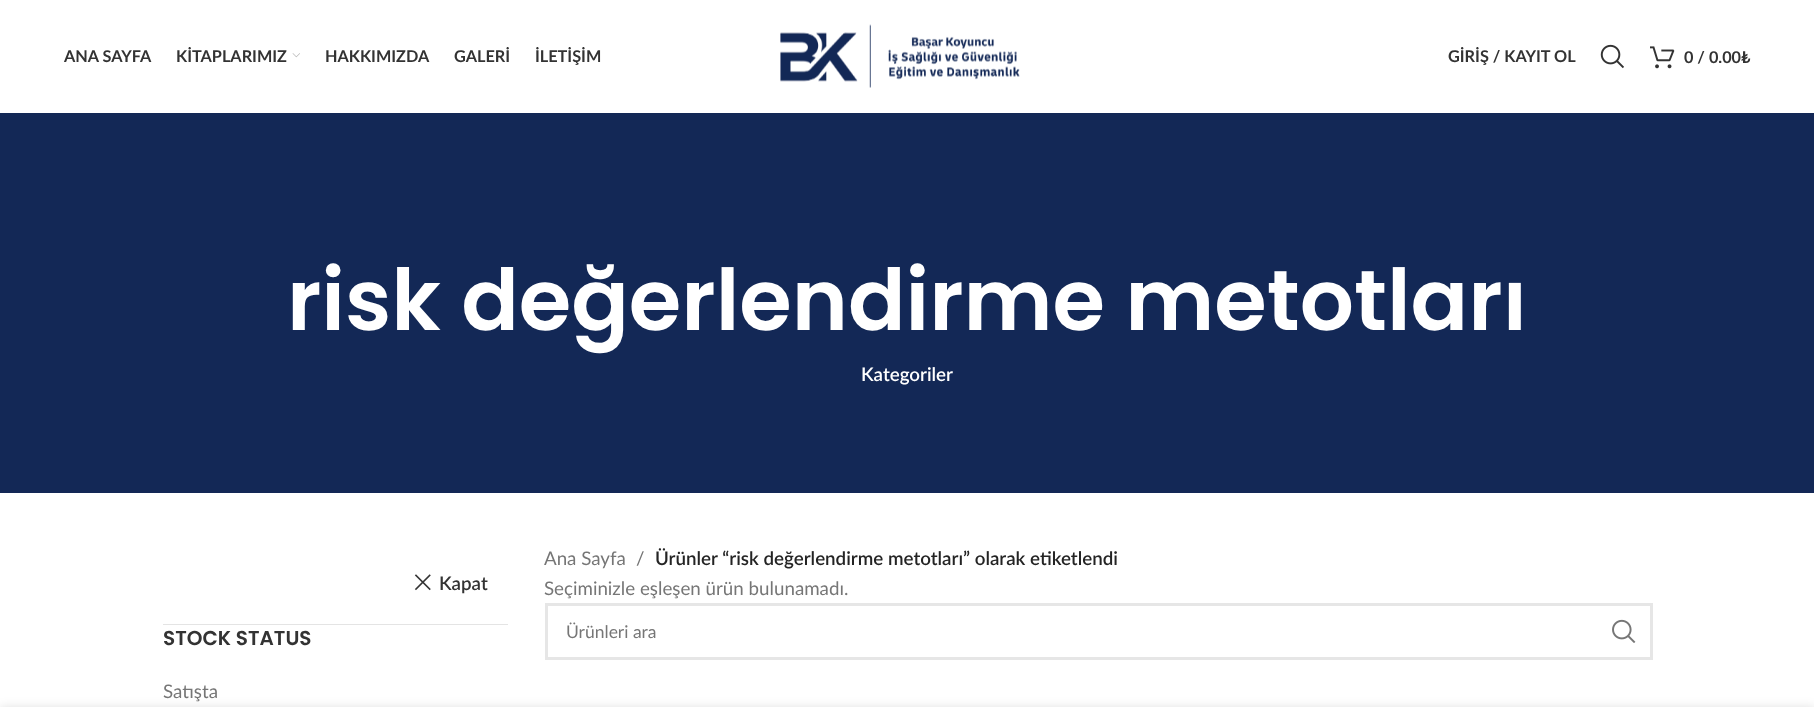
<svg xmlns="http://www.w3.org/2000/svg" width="1814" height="707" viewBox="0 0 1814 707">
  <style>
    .t1 { font: bold 16.25px Lato; fill: #333; }
    .t2 { font: 600 85px Poppins; fill: #fff; }
    .t3 { font: 600 18.75px Lato; fill: #fff; }
    .t4 { font: 600 18.75px Lato; fill: #333; }
    .t5 { font: 600 20px Poppins; fill: #333; }
    .t6 { font: 18.75px Lato; fill: #767676; }
    .t7 { font: 600 18.75px Lato; fill: #242424; }
    .t8 { font: 17.5px Lato; fill: #767676; }
  </style>
  <rect width="100%" height="100%" fill="#fff"/>
  <text x="64" y="62" class="t1">ANA SAYFA</text>
  <text x="176" y="62" class="t1">KİTAPLARIMIZ</text>
  <image x="292" y="53" width="8" height="5" href="images/1.png"/>
  <text x="325" y="62" class="t1">HAKKIMIZDA</text>
  <text x="454" y="62" class="t1">GALERİ</text>
  <text x="535" y="62" class="t1">İLETİŞİM</text>
  <image x="780" y="24" width="240" height="64" href="images/2.png"/>
  <text x="1448" y="62" class="t1">GİRİŞ / KAYIT OL</text>
  <image x="1600" y="44" width="24" height="25" href="images/3.png"/>
  <image x="1650" y="46" width="25" height="23" href="images/4.png"/>
  <text x="1684" y="63" class="t1">0 / 0.00₺</text>
  <rect x="0" y="113" width="1814" height="380" fill="#132856"/>
  <text x="287" y="330" class="t2">risk değerlendirme metotları</text>
  <text x="861" y="381" class="t3">Kategoriler</text>
  <rect x="163" y="624" width="345" height="1" fill="#e4e4e4"/>
  <image x="414" y="574" width="17" height="17" href="images/5.png"/>
  <text x="439" y="590" class="t4">Kapat</text>
  <text x="163" y="645" class="t5">STOCK STATUS</text>
  <text x="163" y="698" class="t6">Satışta</text>
  <text x="544" y="565" class="t6">Ana Sayfa</text>
  <text x="636" y="565" class="t6">/</text>
  <text x="655" y="565" class="t7">Ürünler “risk değerlendirme metotları” olarak etiketlendi</text>
  <text x="544" y="595" class="t6">Seçiminizle eşleşen ürün bulunamadı.</text>
  <rect x="546.5" y="604.5" width="1105" height="54" fill="none" stroke="#e6e6e6" stroke-width="3"/>
  <text x="566" y="638" class="t8">Ürünleri ara</text>
  <image x="1612" y="619" width="24" height="24" href="images/6.png"/>
  <rect x="0" y="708" width="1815" height="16" fill="#00000024" filter="blur(5.5px)"/>
</svg>
